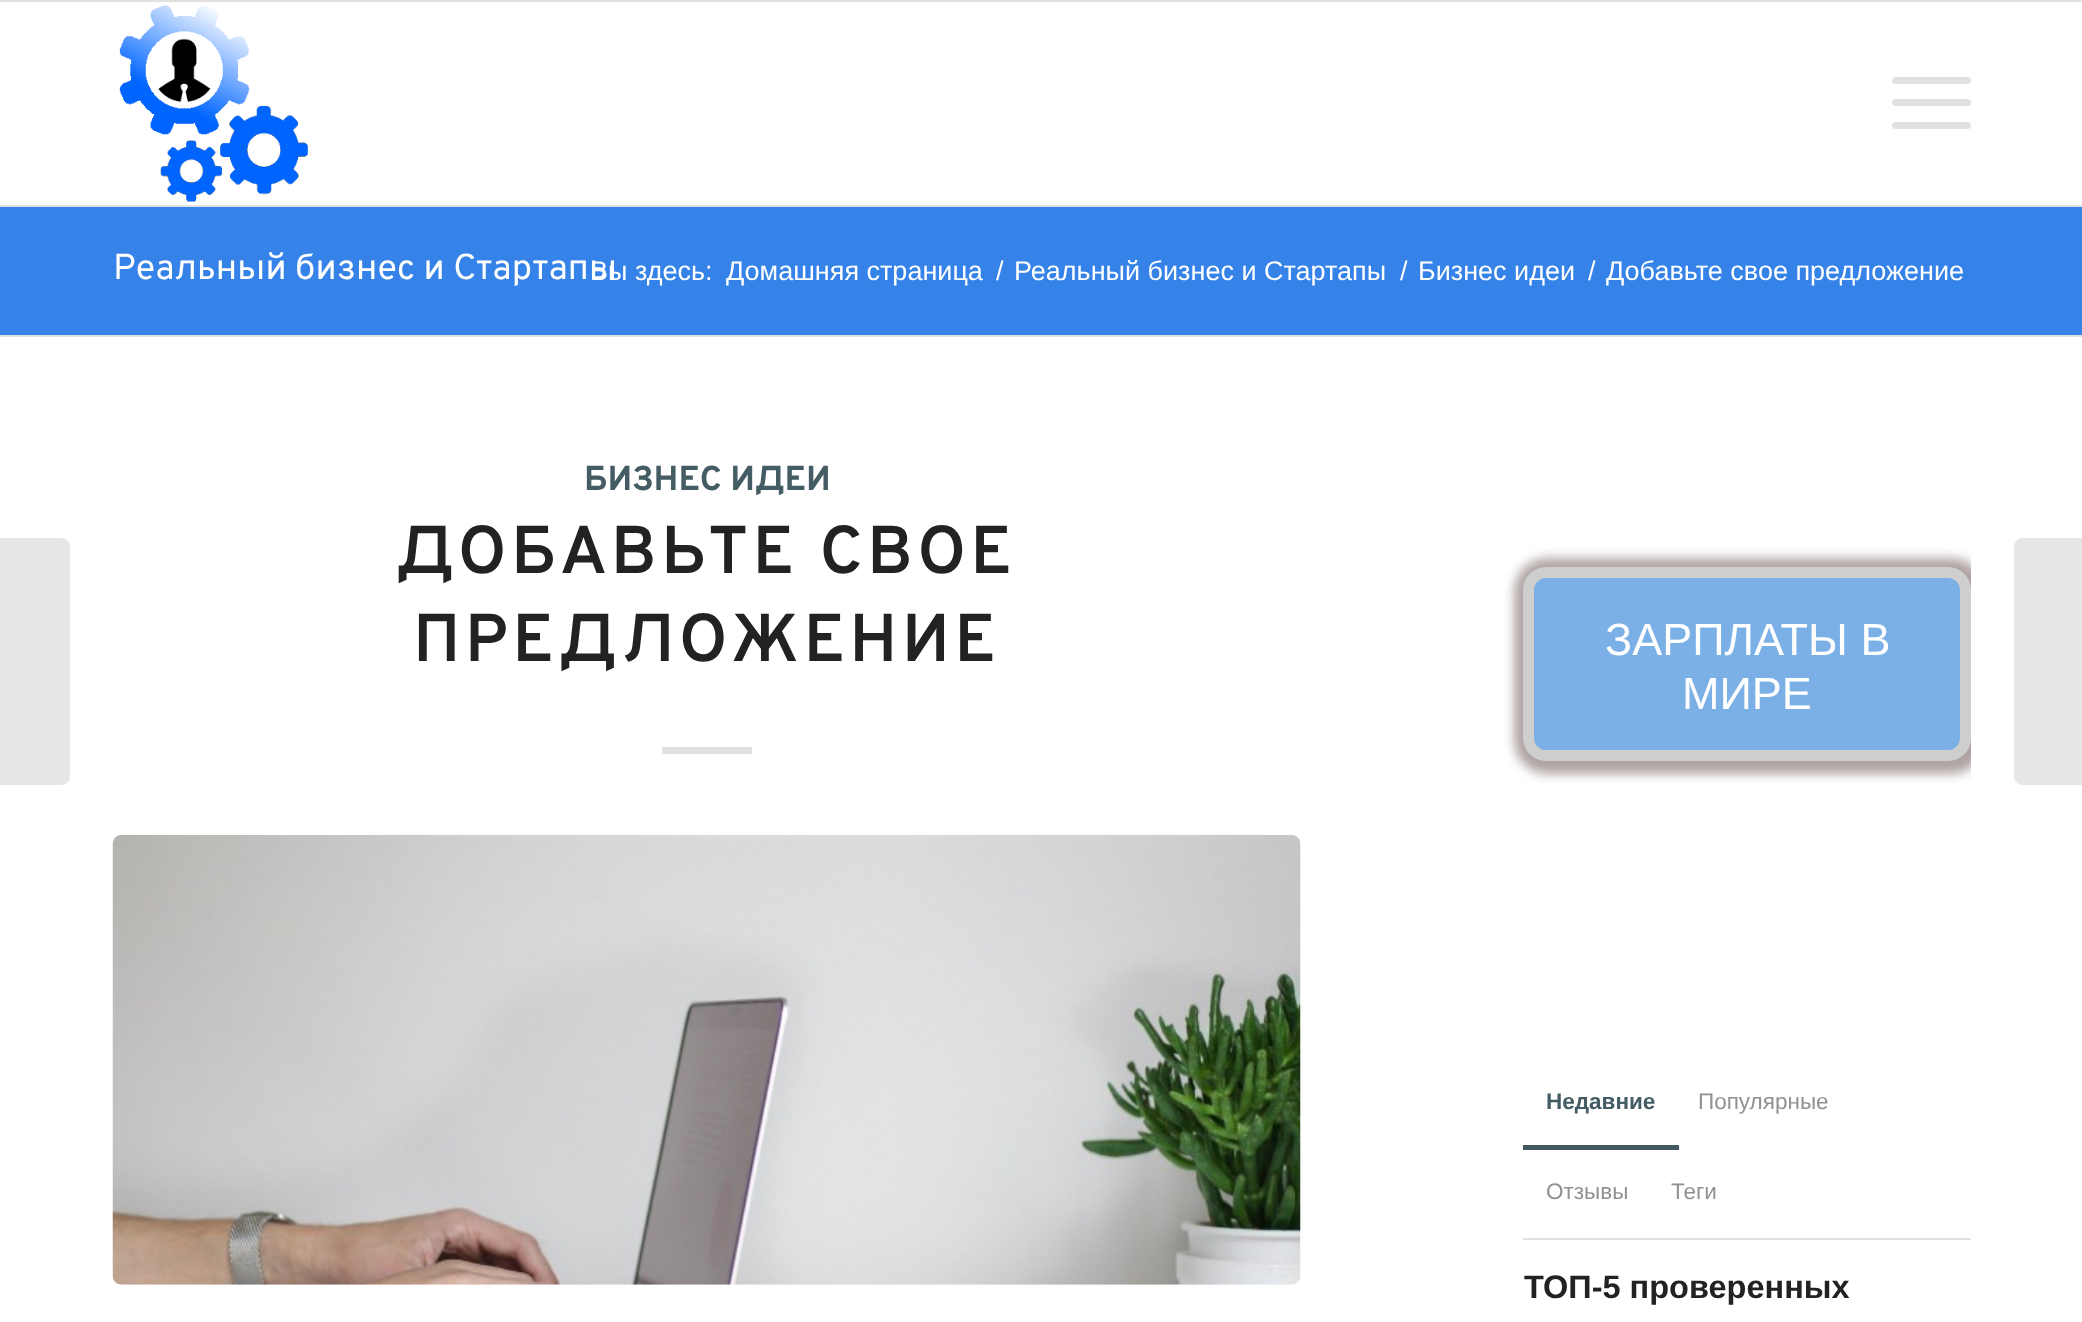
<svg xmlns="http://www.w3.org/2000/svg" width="2082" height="1322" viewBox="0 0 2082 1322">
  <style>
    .t1 { font: 36px Overpass; fill: #fff; }
    .t2 { font: 27px Liberation Sans; fill: #fff; }
    .t3 { font: bold 34.5px Overpass; fill: #445c63; }
    .t4 { font: 600 67.5px Overpass; letter-spacing: 4.5px; fill: #222; }
    .t5 { font: 45px Liberation Sans; fill: #fff; }
    .t6 { font: bold 22.5px Liberation Sans; fill: #445c63; }
    .t7 { font: 22.5px Liberation Sans; fill: #919191; }
    .t8 { font: bold 32.5px Liberation Sans; fill: #222; }
  </style>
  <defs>
    <clipPath id="clip1"><rect x="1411" y="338" width="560" height="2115"/></clipPath>
  </defs>
  <rect width="100%" height="100%" fill="#fff"/>
  <rect x="0" y="0" width="2082" height="2" fill="#e1e1e1"/>
  <rect x="0" y="205" width="2082" height="2" fill="#e1e1e1"/>
  <image x="119" y="5" width="189" height="197" href="images/1.png"/>
  <rect x="1892" y="99" width="79" height="7" rx="3.5" fill="#e1e1e1"/>
  <rect x="1892" y="77" width="79" height="7" rx="3.5" fill="#e1e1e1"/>
  <rect x="1892" y="122" width="79" height="7" rx="3.5" fill="#e1e1e1"/>
  <path d="M0 538H61C66 538 70 542 70 547V776C70 781 66 785 61 785H0Z" fill="#e6e6e6"/>
  <rect x="0" y="207" width="2082" height="128" fill="#3582e8"/>
  <text x="113" y="279" class="t1">Реальный бизнес и Стартапы</text>
  <text x="590" y="280" class="t2">Вы здесь:</text>
  <text x="726" y="280" class="t2">Домашняя страница</text>
  <text x="996" y="280" class="t2">/</text>
  <text x="1014" y="280" class="t2">Реальный бизнес и Стартапы</text>
  <text x="1400" y="280" class="t2">/</text>
  <text x="1418" y="280" class="t2">Бизнес идеи</text>
  <text x="1588" y="280" class="t2">/</text>
  <text x="1606" y="280" class="t2">Добавьте свое предложение</text>
  <rect x="0" y="335" width="2082" height="2" fill="#e1e1e1"/>
  <text x="584" y="490" class="t3">БИЗНЕС ИДЕИ</text>
  <text x="396" y="573" class="t4">ДОБАВЬТЕ СВОЕ</text>
  <text x="413" y="661" class="t4">ПРЕДЛОЖЕНИЕ</text>
  <rect x="662" y="747" width="90" height="7" fill="#e1e1e1"/>
  <image x="112" y="834" width="1189" height="451" href="images/2.png"/>
  <g clip-path="url(#clip1)">
    <rect x="1514" y="558" width="471" height="216" rx="34" fill="#afa3a3" filter="blur(5.5px)"/>
  </g>
  <rect x="1528.5" y="572.5" width="437" height="183" rx="17.5" fill="#7bb0e7" stroke="#cecece" stroke-width="11"/>
  <text x="1605" y="655" class="t5">ЗАРПЛАТЫ В</text>
  <text x="1682" y="709" class="t5">МИРЕ</text>
  <rect x="1523" y="1238" width="448" height="2" fill="#e1e1e1"/>
  <rect x="1523" y="1145" width="156" height="5" fill="#435960"/>
  <text x="1546" y="1109" class="t6">Недавние</text>
  <text x="1698" y="1109" class="t7">Популярные</text>
  <text x="1546" y="1199" class="t7">Отзывы</text>
  <text x="1671" y="1199" class="t7">Теги</text>
  <text x="1524" y="1298" class="t8">ТОП-5 проверенных</text>
  <path d="M2023 538H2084V785H2023C2018 785 2014 781 2014 776V547C2014 542 2018 538 2023 538Z" fill="#e6e6e6"/>
</svg>
